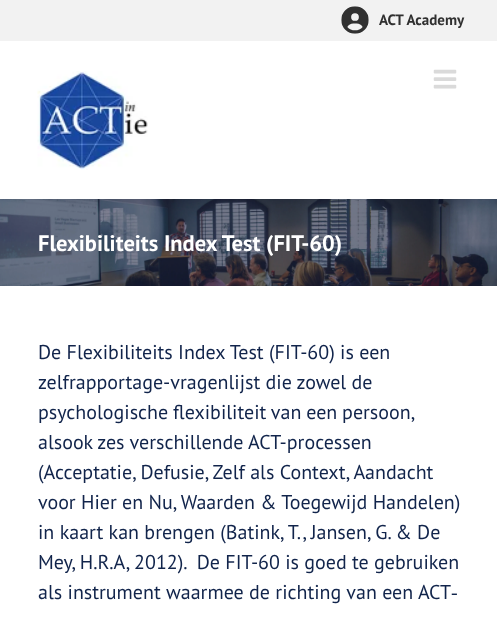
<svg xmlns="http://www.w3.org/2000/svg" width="497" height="620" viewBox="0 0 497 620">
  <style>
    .t1 { font: bold 15px PT Sans; fill: #303030; }
    .t2 { font: bold 22.5px PT Sans; fill: #fff; }
    .t3 { font: 20px PT Sans; fill: #11244b; }
    .t4 { font: 20px Liberation Serif; fill: #11244b; }
  </style>
  <rect width="100%" height="100%" fill="#fff"/>
  <rect x="0" y="0" width="497" height="41" fill="#f2f2f2"/>
  <image x="341" y="6" width="28" height="28" href="images/1.png"/>
  <text x="379" y="25" class="t1">ACT Academy</text>
  <image x="37" y="71" width="111" height="99" href="images/2.png"/>
  <image x="433" y="69" width="24" height="20" href="images/3.png"/>
  <image x="0" y="199" width="497" height="87" href="images/4.png"/>
  <text x="38" y="251" class="t2">Flexibiliteits Index Test (FIT-60)</text>
  <text x="38" y="359" class="t3">De Flexibiliteits Index Test (FIT-60) is een</text>
  <text x="38" y="389" class="t3">zelfrapportage-vragenlijst die zowel de</text>
  <text x="38" y="419" word-spacing="-0.5" class="t3">psychologische flexibiliteit van een persoon,</text>
  <text x="38" y="449" class="t3">alsook zes verschillende ACT-processen</text>
  <text x="38" y="479" class="t3">(Acceptatie, Defusie, Zelf als Context, Aandacht</text>
  <text x="38" y="509" class="t3">voor Hier en Nu, Waarden &amp; Toegewijd Handelen)</text>
  <text x="38" y="539" class="t3">in kaart kan brengen (Batink, T., Jansen, G. &amp; De</text>
  <text x="38" y="569" class="t3" xml:space="preserve">Mey, H.R.A, 2012).  De FIT-60 is goed te gebruiken</text>
  <text x="38" y="599" class="t3">als instrument waarmee de richting van een ACT</text>
  <text x="451" y="599" class="t4">‐</text>
</svg>
